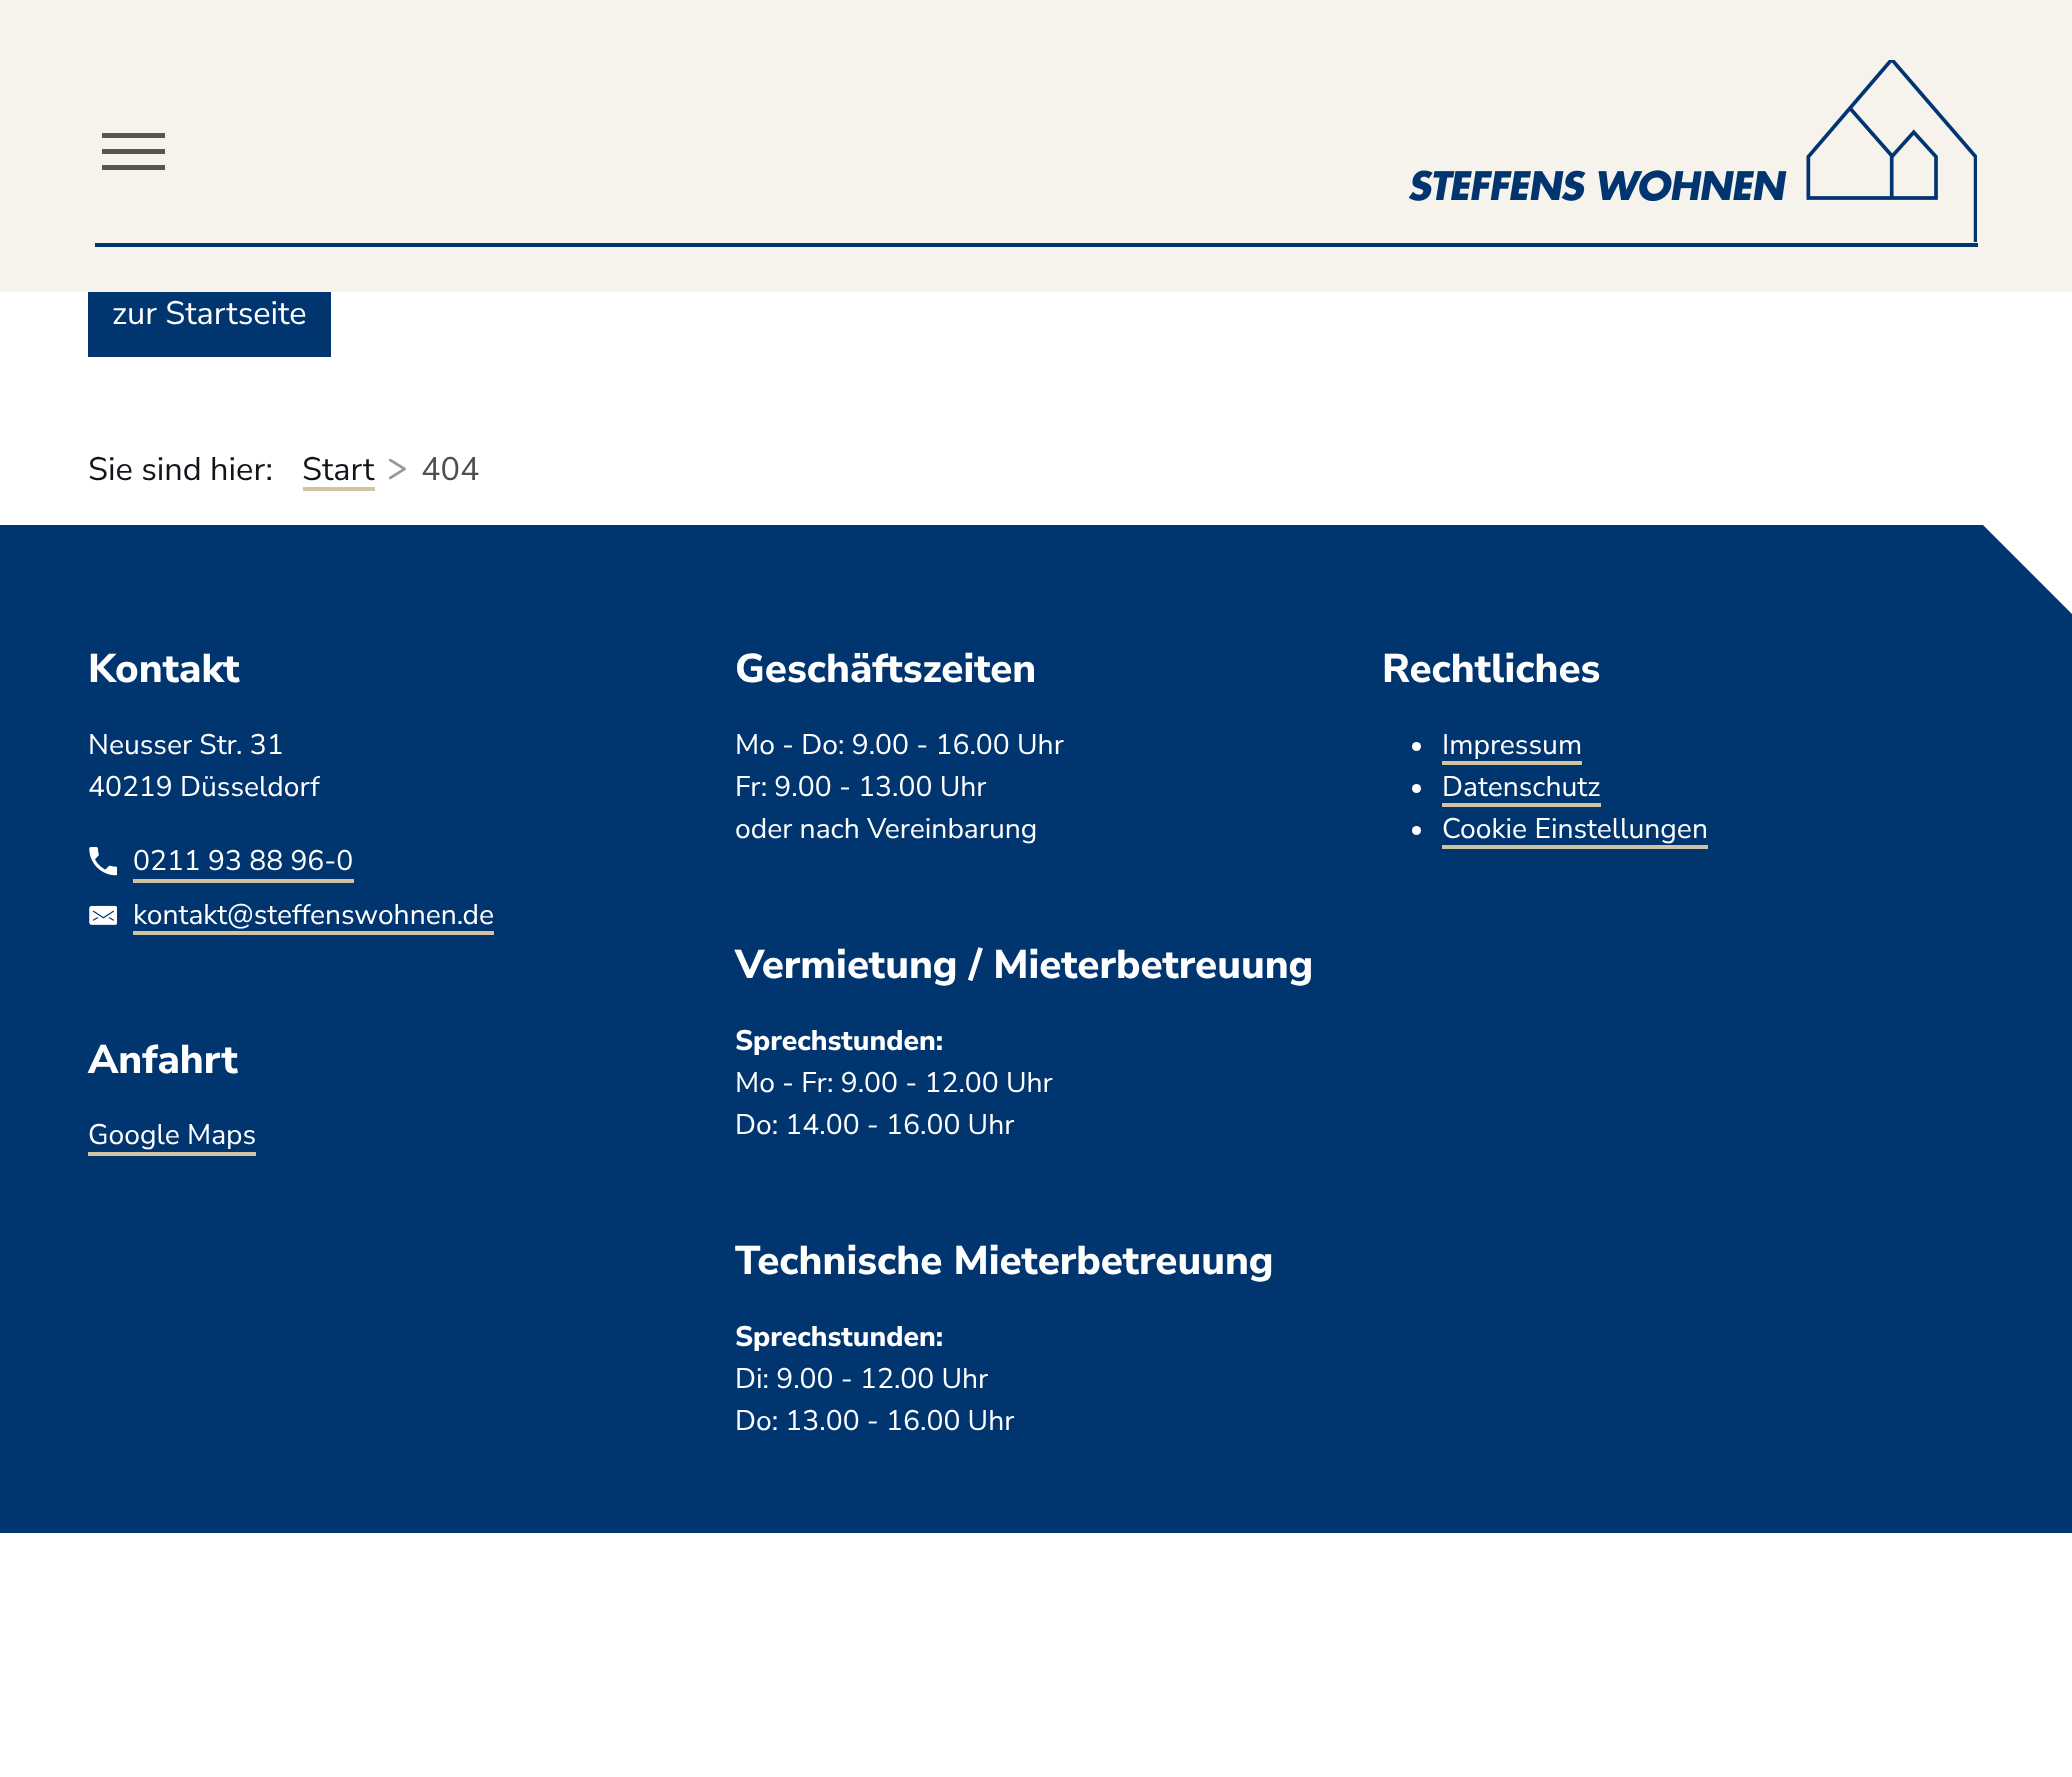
<svg xmlns="http://www.w3.org/2000/svg" width="2072" height="1777" viewBox="0 0 2072 1777">
  <style>
    .t1 { font: 200 32.5px Nunito Sans; fill: #fff; }
    .t2 { font: 200 32.5px Nunito Sans; fill: #111519; }
    .t3 { font: 200 32.5px Nunito Sans; fill: #4d5053; }
    .t4 { font: 800 40.25px Nunito Sans; fill: #fff; }
    .t5 { font: 200 28.25px Nunito Sans; fill: #fff; }
    .t6 { font: 800 28.25px Nunito Sans; fill: #fff; }
  </style>
  <rect width="100%" height="100%" fill="#fff"/>
  <rect x="0" y="0" width="2072" height="292" fill="#f6f3ec"/>
  <rect x="95" y="243" width="1883" height="4" fill="#003570"/>
  <rect x="102" y="133" width="63" height="5" fill="#565553"/>
  <rect x="102" y="149" width="63" height="5" fill="#565553"/>
  <rect x="102" y="165" width="63" height="5" fill="#565553"/>
  <image x="1409" y="60" width="568" height="182" href="images/1.png"/>
  <rect x="88" y="292" width="243" height="65" fill="#003570"/>
  <text x="112" y="324" class="t1">zur Startseite</text>
  <text x="88" y="480" class="t2">Sie sind hier:</text>
  <text x="302" y="480" class="t2">Start</text>
  <rect x="303" y="487" width="72" height="4" fill="#d1c5a1"/>
  <image x="389" y="459" width="17" height="21" href="images/2.png"/>
  <text x="421" y="480" class="t3">404</text>
  <rect x="0" y="525" width="2072" height="1008" fill="#003570"/>
  <path d="M2072 525V614L1983 525Z" fill="#fff"/>
  <text x="88" y="682" class="t4">Kontakt</text>
  <text x="88" y="754" class="t5">Neusser Str. 31</text>
  <text x="88" y="796" class="t5">40219 Düsseldorf</text>
  <image x="89" y="847" width="28" height="29" href="images/3.png"/>
  <text x="133" y="870" class="t5">0211 93 88 96-0</text>
  <rect x="133" y="879" width="221" height="4" fill="#d1c5a1"/>
  <image x="89" y="905" width="28" height="20" href="images/4.png"/>
  <text x="133" y="924" class="t5">kontakt@steffenswohnen.de</text>
  <rect x="133" y="931" width="361" height="4" fill="#d1c5a1"/>
  <text x="88" y="1073" class="t4">Anfahrt</text>
  <text x="88" y="1144" class="t5">Google Maps</text>
  <rect x="88" y="1152" width="168" height="4" fill="#d1c5a1"/>
  <text x="735" y="682" class="t4">Geschäftszeiten</text>
  <text x="735" y="754" class="t5">Mo - Do: 9.00 - 16.00 Uhr</text>
  <text x="735" y="796" class="t5">Fr: 9.00 - 13.00 Uhr</text>
  <text x="735" y="838" class="t5">oder nach Vereinbarung</text>
  <text x="735" y="978" class="t4">Vermietung / Mieterbetreuung</text>
  <text x="735" y="1050" class="t6">Sprechstunden:</text>
  <text x="735" y="1092" class="t5">Mo - Fr: 9.00 - 12.00 Uhr</text>
  <text x="735" y="1134" class="t5">Do: 14.00 - 16.00 Uhr</text>
  <text x="735" y="1274" class="t4">Technische Mieterbetreuung</text>
  <text x="735" y="1346" class="t6">Sprechstunden:</text>
  <text x="735" y="1388" class="t5">Di: 9.00 - 12.00 Uhr</text>
  <text x="735" y="1430" class="t5">Do: 13.00 - 16.00 Uhr</text>
  <text x="1382" y="682" class="t4">Rechtliches</text>
  <circle cx="1416.5" cy="746.5" r="4.5" fill="#fff"/>
  <text x="1442" y="754" class="t5">Impressum</text>
  <rect x="1442" y="761" width="140" height="4" fill="#d1c5a1"/>
  <circle cx="1416.5" cy="788.5" r="4.5" fill="#fff"/>
  <text x="1442" y="796" class="t5">Datenschutz</text>
  <rect x="1442" y="803" width="159" height="4" fill="#d1c5a1"/>
  <circle cx="1416.5" cy="830.5" r="4.5" fill="#fff"/>
  <text x="1442" y="838" class="t5">Cookie Einstellungen</text>
  <rect x="1442" y="845" width="266" height="4" fill="#d1c5a1"/>
</svg>
